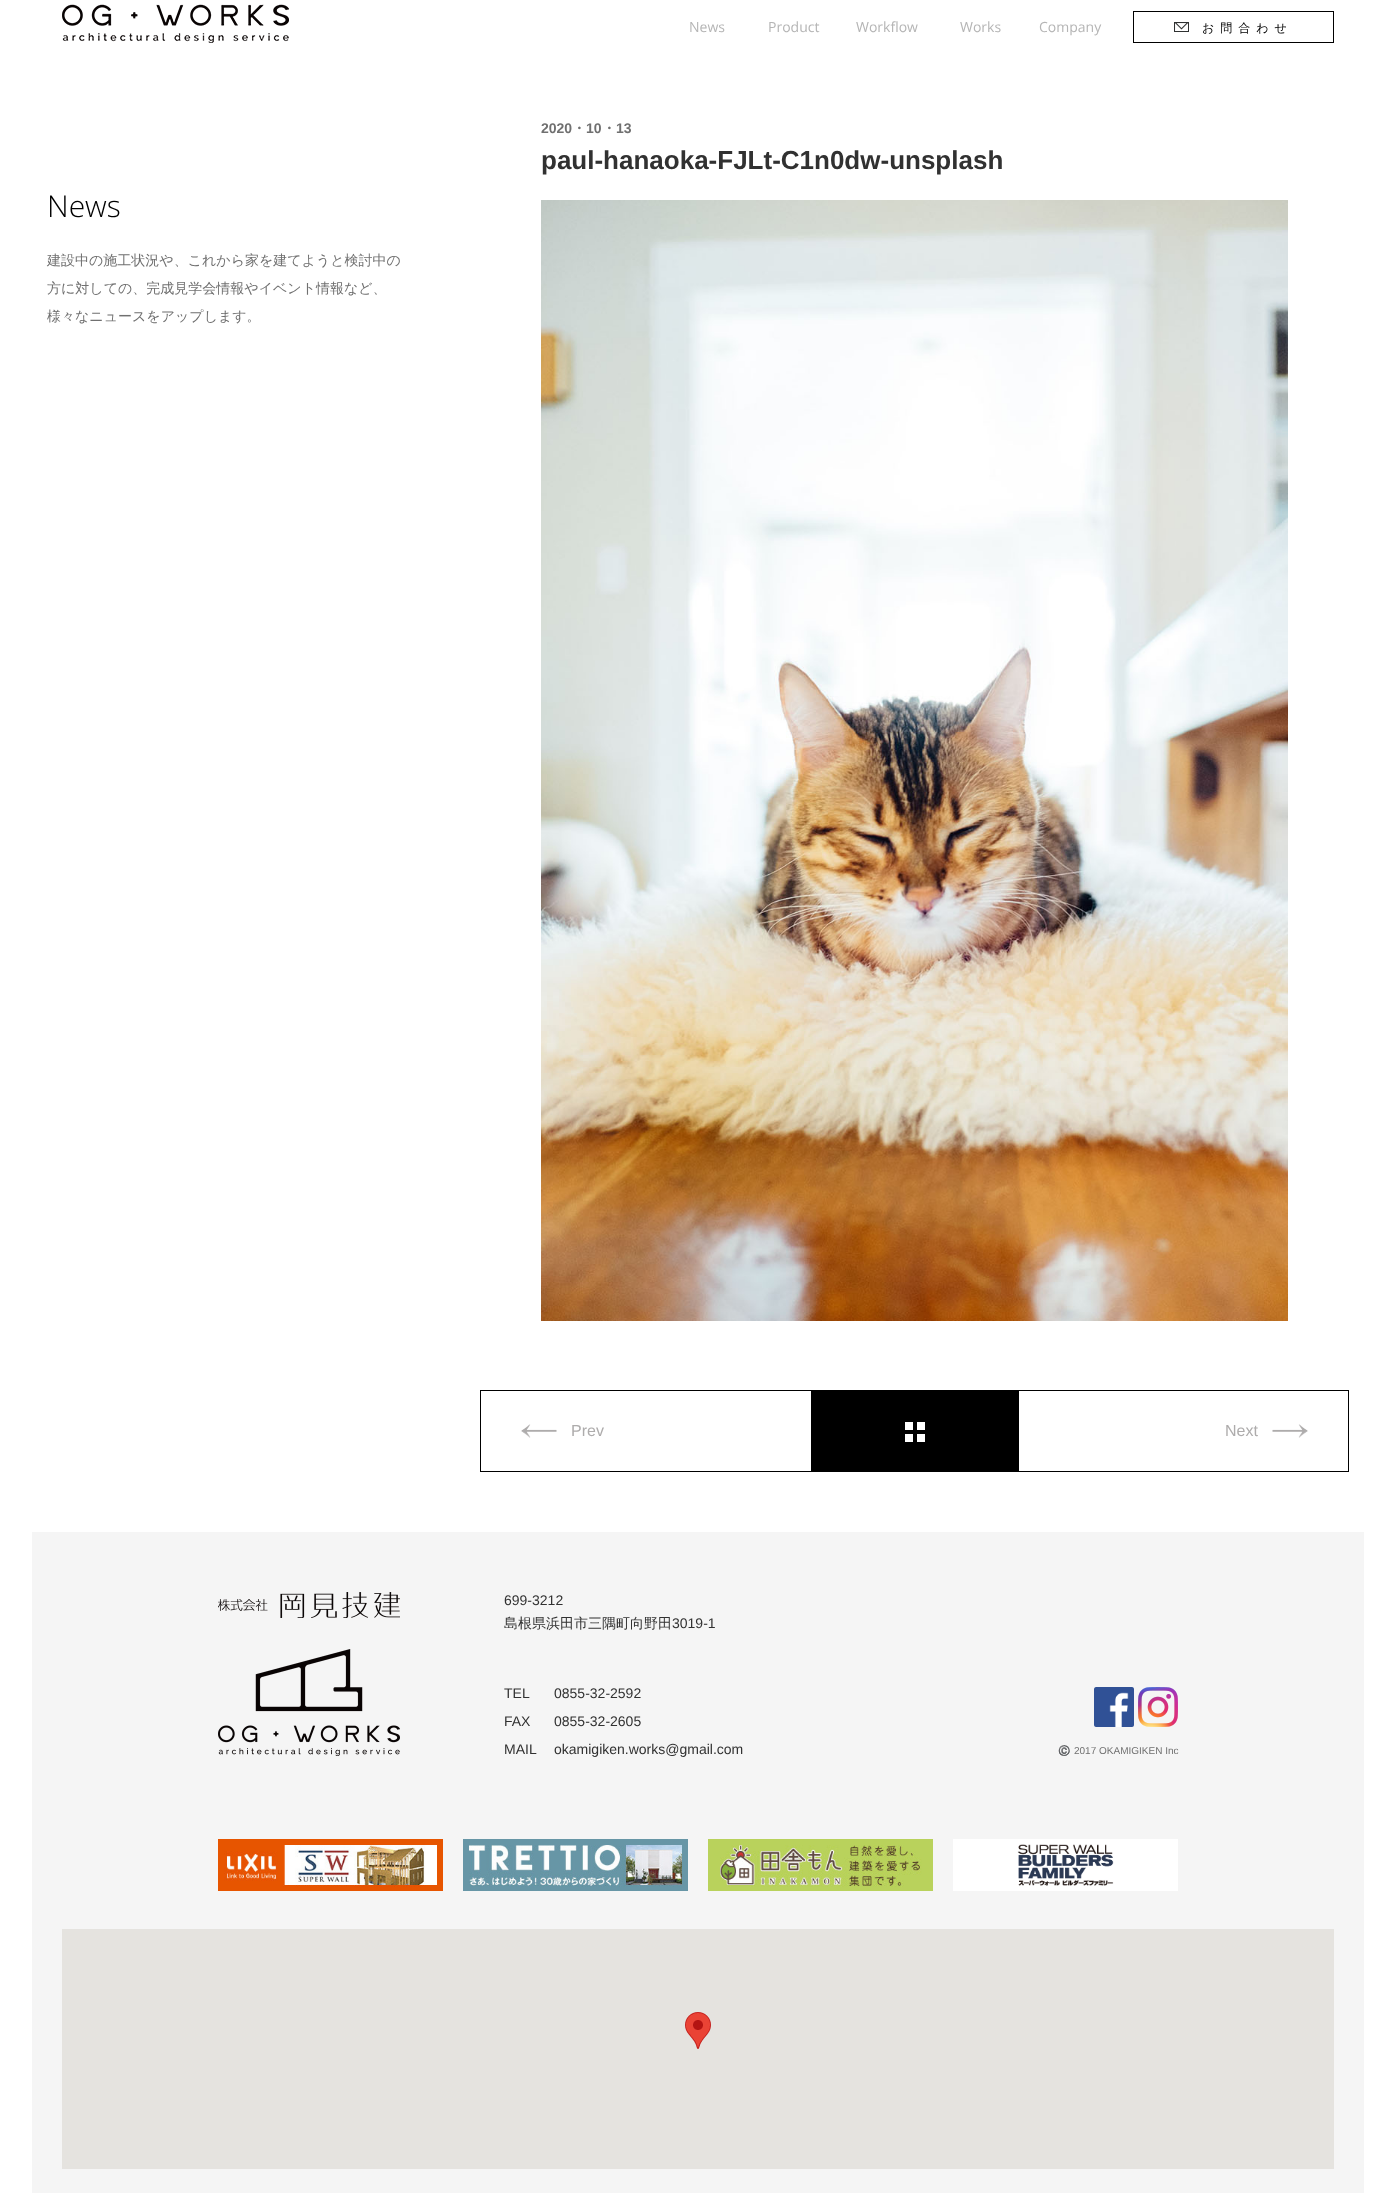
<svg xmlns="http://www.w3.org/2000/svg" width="1396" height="2193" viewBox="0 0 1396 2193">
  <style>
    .t1 { font: 14px Open Sans; fill: #b5b5b5; }
    .t2 { font: 500 12px WenQuanYi Zen Hei; letter-spacing: 6px; fill: #000; }
    .t3 { font: 300 30px Open Sans; fill: #000; }
    .t4 { font: 500 14px WenQuanYi Zen Hei; fill: #707070; }
    .t5 { font: bold 14px Liberation Sans; fill: #707070; }
    .t6 { font: bold 14px WenQuanYi Zen Hei; fill: #707070; }
    .t7 { font: bold 26px Liberation Sans; fill: #313131; }
    .t8 { font: 16px Liberation Sans; fill: #aeacac; }
    .t9 { font: 14px Liberation Sans; fill: #313131; }
    .t10 { font: 500 14px WenQuanYi Zen Hei; fill: #313131; }
    .t11 { font: 10px Noto Color Emoji; fill: #707070; }
    .t12 { font: 10px Liberation Sans; fill: #707070; }
  </style>
  <rect width="100%" height="100%" fill="#fff"/>
  <image x="62" y="4" width="227" height="39" href="images/1.png"/>
  <text x="689" y="32" class="t1">News</text>
  <text x="768" y="32" class="t1">Product</text>
  <text x="856" y="32" class="t1">Workflow</text>
  <text x="960" y="32" class="t1">Works</text>
  <text x="1039" y="32" class="t1">Company</text>
  <rect x="1133.5" y="11.5" width="200" height="31" fill="none" stroke="#000"/>
  <image x="1174" y="22" width="15" height="10" href="images/2.png"/>
  <text x="1202" y="32" class="t2">お問合わせ</text>
  <text x="47" y="217" class="t3">News</text>
  <text x="47" y="265" class="t4">建設中の施工状況や、これから家を建てようと検討中の</text>
  <text x="47" y="293" class="t4">方に対しての、完成見学会情報やイベント情報など、</text>
  <text x="47" y="321" class="t4">様々なニュースをアップします。</text>
  <text x="541" y="133" class="t5">2020</text>
  <text x="572" y="133" class="t6">・</text>
  <text x="586" y="133" class="t5">10</text>
  <text x="602" y="133" class="t6">・</text>
  <text x="616" y="133" class="t5">13</text>
  <text x="541" y="169" class="t7">paul-hanaoka-FJLt-C1n0dw-unsplash</text>
  <image x="541" y="200" width="747" height="1121" href="images/3.png"/>
  <rect x="480.5" y="1390.5" width="868" height="81" fill="none" stroke="#000"/>
  <image x="521" y="1424" width="36" height="14" href="images/4.png"/>
  <text x="571" y="1436" class="t8">Prev</text>
  <rect x="811" y="1391" width="208" height="80" fill="#000"/>
  <image x="905" y="1422" width="20" height="20" href="images/5.png"/>
  <text x="1225" y="1436" class="t8">Next</text>
  <image x="1272" y="1424" width="36" height="14" href="images/6.png"/>
  <rect x="32" y="1532" width="1332" height="661" fill="#f5f5f5"/>
  <image x="218" y="1592" width="182" height="164" href="images/7.png"/>
  <text x="504" y="1605" class="t9">699-3212</text>
  <text x="504" y="1628" class="t10">島根県浜田市三隅町向野田</text>
  <text x="672" y="1628" class="t9">3019-1</text>
  <text x="504" y="1698" class="t9">TEL</text>
  <text x="554" y="1698" class="t9">0855-32-2592</text>
  <text x="504" y="1726" class="t9">FAX</text>
  <text x="554" y="1726" class="t9">0855-32-2605</text>
  <text x="504" y="1754" class="t9">MAIL</text>
  <text x="554" y="1754" class="t9">okamigiken.works@gmail.com</text>
  <image x="1094" y="1687" width="40" height="40" href="images/8.png"/>
  <image x="1138" y="1687" width="40" height="40" href="images/9.png"/>
  <text x="1058" y="1754" class="t11">©️</text>
  <text x="1074" y="1754" class="t12">2017 OKAMIGIKEN Inc</text>
  <image x="218" y="1839" width="225" height="52" href="images/10.png"/>
  <image x="463" y="1839" width="225" height="52" href="images/11.png"/>
  <image x="708" y="1839" width="225" height="52" href="images/12.png"/>
  <image x="953" y="1839" width="225" height="52" href="images/13.png"/>
  <rect x="62" y="1929" width="1272" height="240" fill="#e5e3df"/>
  <image x="685" y="2012" width="26" height="37" href="images/14.png"/>
</svg>
